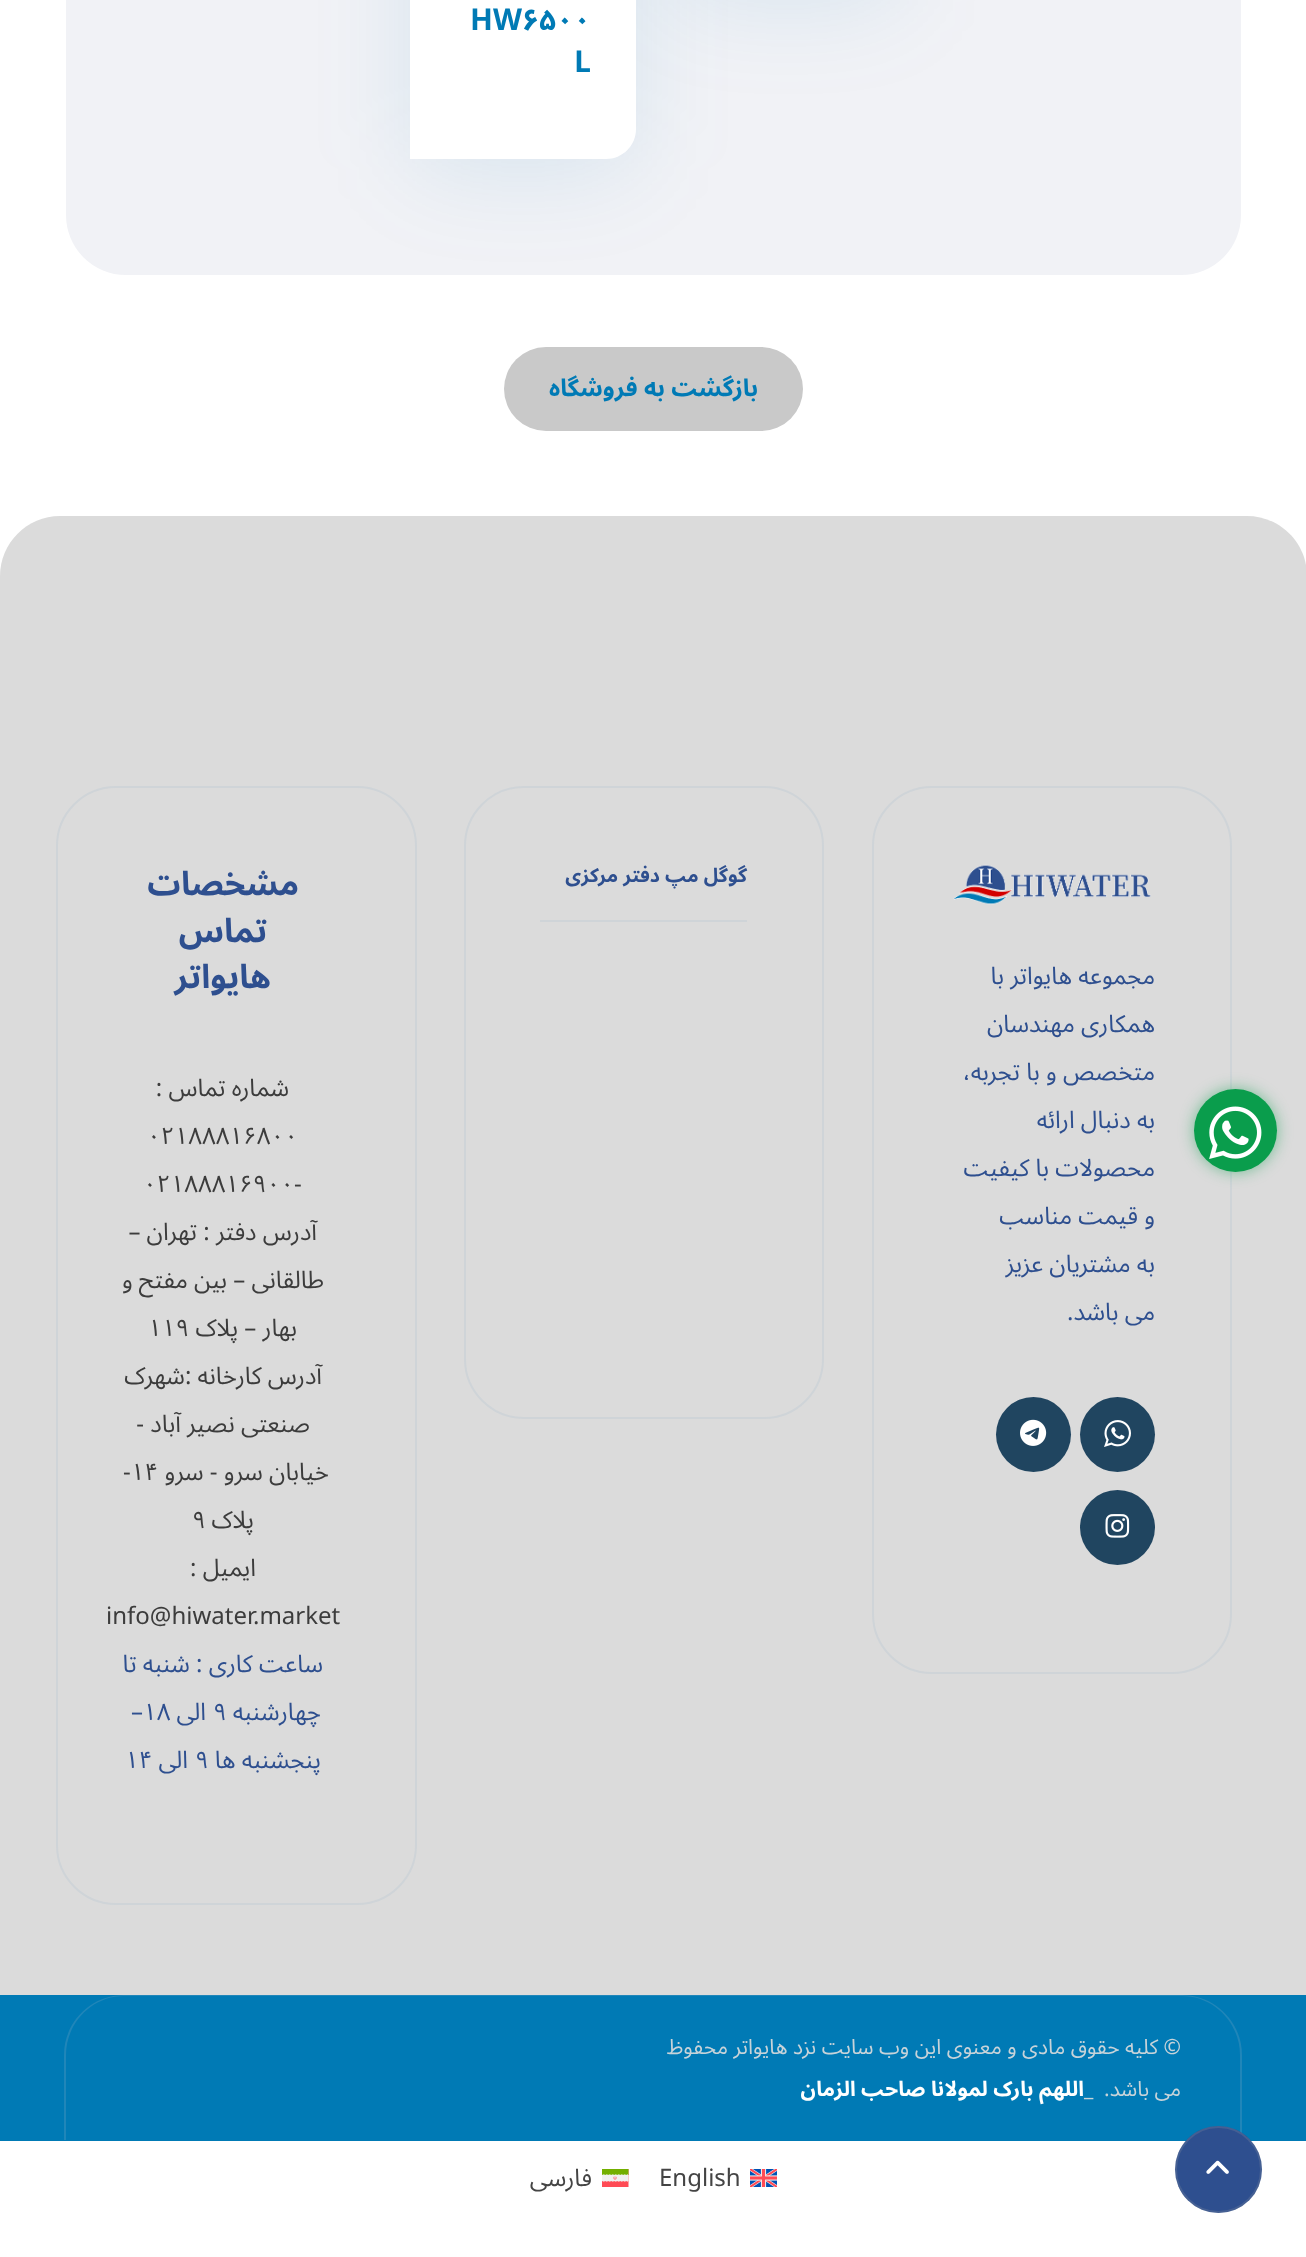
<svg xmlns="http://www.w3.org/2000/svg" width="1306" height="2257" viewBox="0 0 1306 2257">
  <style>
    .t1 { font: bold 30px Noto Sans Arabic; fill: #007ab5; }
    .t2 { font: bold 24px Noto Sans Arabic; direction: rtl; fill: #007ab5; }
    .t3 { font: 24px Noto Sans Arabic; direction: rtl; fill: #2e4f8f; }
    .t4 { font: bold 19.5px Noto Sans Arabic; direction: rtl; fill: #2e4f8f; }
    .t5 { font: bold 33px Noto Sans Arabic; direction: rtl; fill: #2e4f8f; }
    .t6 { font: 24px Noto Sans Arabic; direction: rtl; fill: #3c3c3c; }
    .t7 { font: 24px Noto Sans Arabic; fill: #3c3c3c; }
    .t8 { font: 24px Noto Sans Arabic; fill: #2e4f8f; }
    .t9 { font: 21px Noto Sans Arabic; direction: rtl; fill: #c7d3d9; }
    .t10 { font: 21px Noto Sans Arabic; fill: #c7d3d9; }
    .t11 { font: bold 21px Noto Sans Arabic; direction: rtl; fill: #fff; }
    .t12 { font: 24px Noto Sans Arabic; fill: #444; }
    .t13 { font: 24px Noto Sans Arabic; direction: rtl; fill: #444; }
  </style>
  <rect width="100%" height="100%" fill="#fff"/>
  <path d="M60 516H1247C1280 516 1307 543 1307 576V2141H0V576C0 543 27 516 60 516Z" fill="#dbdbdb"/>
  <rect x="873" y="787" width="358" height="886" rx="59" fill="none" stroke="#cfd4d8" stroke-width="2"/>
  <rect x="1194" y="1089" width="83" height="83" rx="41.5" fill="#0a9d4c80" filter="blur(7.5px)"/>
  <circle cx="1235.5" cy="1130.5" r="41.5" fill="#0a9d4c"/>
  <image x="1209" y="1106" width="53" height="53" href="images/1.png"/>
  <rect x="66" y="-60" width="1175" height="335" rx="60" fill="#f1f2f6"/>
  <rect x="675" y="-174" width="227" height="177" rx="30" fill="#007ab51a" filter="blur(48px)"/>
  <rect x="410" y="-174" width="226" height="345" rx="30" fill="#007ab51a" filter="blur(48px)"/>
  <path d="M440-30H636V129C636 145.5 622.5 159 606 159H410V0C410-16.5 423.5-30 440-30Z" fill="#fff"/>
  <text x="470" y="30" class="t1">HW۶۵۰۰</text>
  <text x="574" y="72" class="t1">L</text>
  <rect x="504" y="347" width="299" height="84" rx="42" fill="#c9c9c9"/>
  <text x="758" y="396" class="t2">بازگشت به فروشگاه</text>
  <image x="953" y="864" width="198" height="41" href="images/2.png"/>
  <text x="1155" y="984" class="t3">مجموعه هایواتر با</text>
  <text x="1155" y="1032" class="t3">همکاری مهندسان</text>
  <text x="1155" y="1080" class="t3">متخصص و با تجربه،</text>
  <text x="1155" y="1128" class="t3">به دنبال ارائه</text>
  <text x="1155" y="1176" class="t3">محصولات با کیفیت</text>
  <text x="1155" y="1224" class="t3">و قیمت مناسب</text>
  <text x="1155" y="1272" class="t3">به مشتریان عزیز</text>
  <text x="1155" y="1320" class="t3">می‌ باشد.</text>
  <circle cx="1117.5" cy="1434.5" r="37.5" fill="#204560"/>
  <image x="1104" y="1420" width="27" height="27" href="images/3.png"/>
  <circle cx="1033.5" cy="1434.5" r="37.5" fill="#204560"/>
  <image x="1020" y="1419" width="27" height="27" href="images/4.png"/>
  <circle cx="1117.5" cy="1527.5" r="37.5" fill="#204560"/>
  <image x="1105" y="1514" width="25" height="24" href="images/5.png"/>
  <rect x="465" y="787" width="358" height="631" rx="59" fill="none" stroke="#cfd4d8" stroke-width="2"/>
  <rect x="540" y="920" width="207" height="2" fill="#cfd4d8"/>
  <text x="747" y="882" class="t4">گوگل مپ دفتر مرکزی</text>
  <rect x="57" y="787" width="359" height="1117" rx="59" fill="none" stroke="#cfd4d8" stroke-width="2"/>
  <text x="299" y="895" class="t5">مشخصات</text>
  <text x="267" y="942" class="t5">تماس</text>
  <text x="271" y="988" class="t5">هایواتر</text>
  <text x="289" y="1096" class="t6">شماره تماس :</text>
  <text x="147" y="1144" class="t7">۰۲۱۸۸۸۱۶۸۰۰</text>
  <text x="143" y="1192" class="t7">۰۲۱۸۸۸۱۶۹۰۰-</text>
  <text x="317" y="1240" class="t6">آدرس دفتر : تهران –</text>
  <text x="324" y="1288" class="t6">طالقانی – بین مفتح و</text>
  <text x="297" y="1336" class="t6">بهار – پلاک</text>
  <text x="148" y="1336" class="t7">۱۱۹</text>
  <text x="322" y="1384" class="t6">آدرس کارخانه :شهرک</text>
  <text x="310" y="1432" class="t6">صنعتی نصیر آباد -</text>
  <text x="329" y="1480" class="t6">خیابان سرو - سرو</text>
  <text x="123" y="1480" class="t7">-۱۴</text>
  <text x="254" y="1528" class="t6">پلاک</text>
  <text x="192" y="1528" class="t7">۹</text>
  <text x="256" y="1576" class="t6">ایمیل :</text>
  <text x="106" y="1624" class="t7">info@hiwater.market</text>
  <text x="323" y="1672" class="t3">ساعت کاری : شنبه تا</text>
  <text x="321" y="1720" class="t3">چهارشنبه</text>
  <text x="213" y="1720" class="t8">۹</text>
  <text x="206" y="1720" class="t3">الی</text>
  <text x="131" y="1720" class="t8">–۱۸</text>
  <text x="321" y="1768" class="t3">پنجشنبه ها</text>
  <text x="195" y="1768" class="t8">۹</text>
  <text x="188" y="1768" class="t3">الی</text>
  <text x="125" y="1768" class="t8">۱۴</text>
  <rect x="0" y="1995" width="1306" height="146" fill="#007ab5"/>
  <path d="M124 1995H1182C1215 1995 1242 2022 1242 2055V2140H64V2055C64 2022 91 1995 124 1995ZM124 1996H1182C1214 1996 1240 2023 1240 2055V2140H66V2055C66 2023 92 1996 124 1996Z" fill="#2086b9" fill-rule="evenodd"/>
  <text x="1181" y="2054" class="t9">© کلیه حقوق مادی و معنوی این وب سایت نزد هایواتر محفوظ</text>
  <text x="1181" y="2096" class="t9">می باشد.</text>
  <text x="1084" y="2096" class="t10">_</text>
  <text x="1084" y="2096" class="t11">اللهم بارک لمولانا صاحب الزمان</text>
  <circle cx="1218.5" cy="2169.5" r="43.5" fill="#2e4f8f"/>
  <circle cx="1218.5" cy="2169.5" r="42.5" fill="none" stroke="#a7a7a733" stroke-width="2"/>
  <image x="1206" y="2160" width="23" height="14" href="images/6.png"/>
  <image x="750" y="2169" width="27" height="18" href="images/7.png"/>
  <text x="659" y="2186" class="t12">English</text>
  <image x="602" y="2169" width="27" height="18" href="images/8.png"/>
  <text x="592" y="2186" class="t13">فارسی</text>
</svg>
